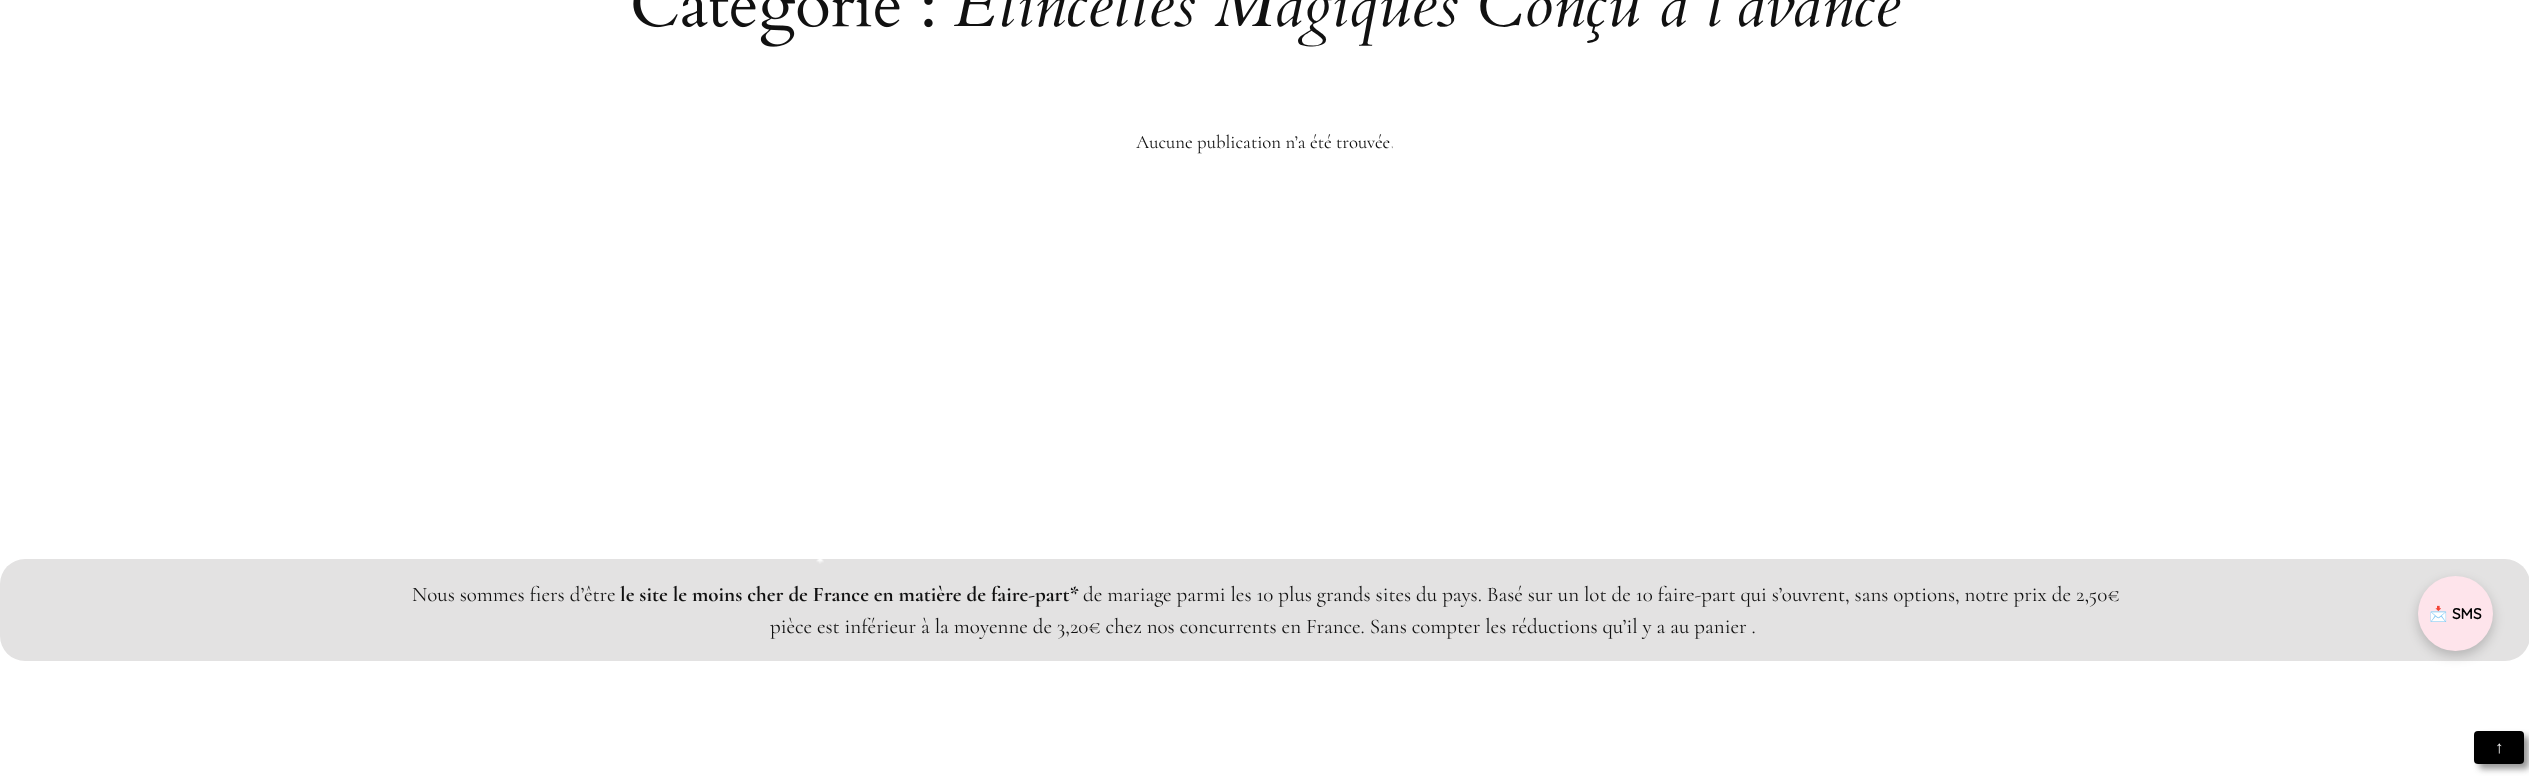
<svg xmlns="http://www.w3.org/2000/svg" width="2529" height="776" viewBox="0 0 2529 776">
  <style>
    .t1 { font: italic 65.4px Cardo; fill: #111; }
    .t2 { font: 18.75px Cormorant; fill: #111; }
    .t3 { font: 21px Cormorant; fill: #111; }
    .t4 { font: bold 21px Cormorant; fill: #111; }
    .t5 { font: bold 15px Noto Color Emoji; fill: #000; }
    .t6 { font: bold 15px Quicksand; fill: #000; }
    .t7 { font: 17px Liberation Sans; fill: #fff; }
  </style>
  <rect width="100%" height="100%" fill="#fff"/>
  <image x="633" y="0" width="300" height="47" href="images/1.png"/>
  <text x="954" y="26" class="t1">Étincelles Magiques Conçu à l’avance</text>
  <text x="1136" y="148" class="t2">Aucune publication n’a été trouvée.</text>
  <rect x="0" y="559" width="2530" height="102" rx="25" fill="#e3e2e2"/>
  <text x="412" y="601" class="t3">Nous sommes fiers d’être</text>
  <text x="620" y="601" class="t4">le site le moins cher de France en matière de faire-part*</text>
  <text x="1083" y="601" class="t3">de mariage parmi les 10 plus grands sites du pays. Basé sur un lot de 10 faire-part qui s’ouvrent, sans options, notre prix de 2,50€</text>
  <text x="770" y="633" class="t3">pièce est inférieur à la moyenne de 3,20€ chez nos concurrents en France. Sans compter les réductions qu’il y a au panier .</text>
  <rect x="2418" y="581" width="75" height="75" rx="37.5" fill="#00000033" filter="blur(6px)"/>
  <circle cx="2455.5" cy="613.5" r="37.5" fill="#fee4eb"/>
  <text x="2429" y="619" class="t5">📩</text>
  <text x="2452" y="619" class="t6">SMS</text>
  <image x="816" y="26" width="577" height="538" href="images/2.png"/>
  <rect x="2479" y="736" width="50" height="33" rx="4" fill="#32323280" filter="blur(3px)"/>
  <rect x="2474" y="731" width="50" height="33" rx="4" fill="#000"/>
  <text x="2495" y="753" class="t7">↑</text>
</svg>
